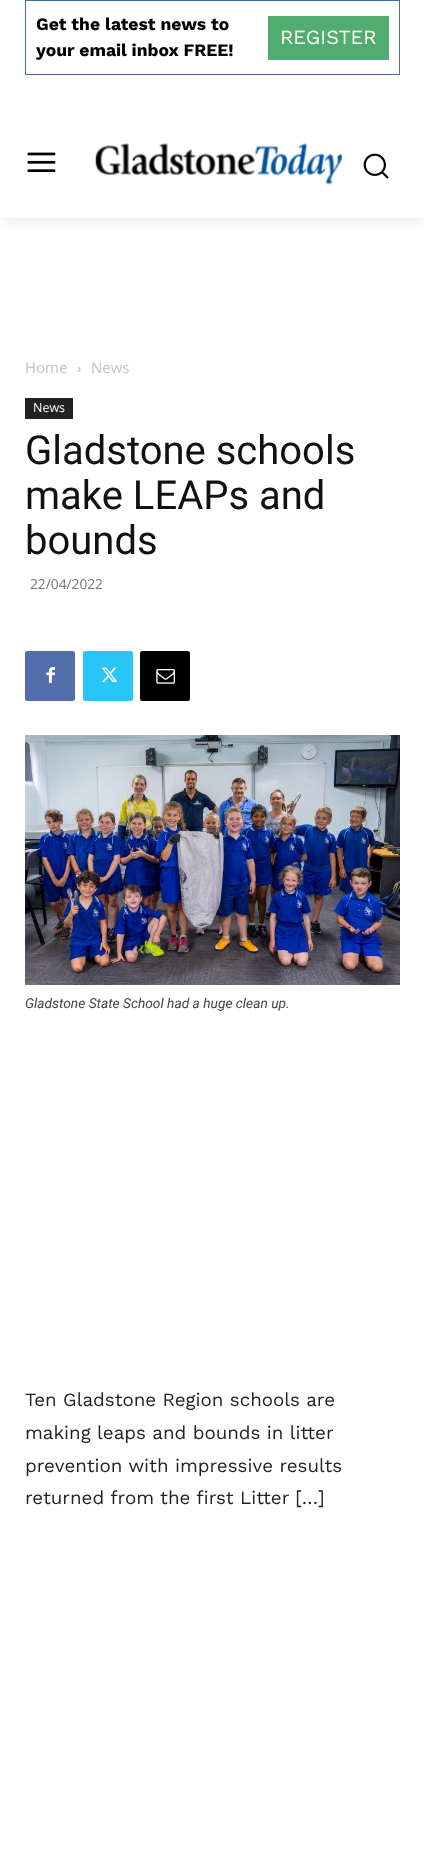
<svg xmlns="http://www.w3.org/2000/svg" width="424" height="1869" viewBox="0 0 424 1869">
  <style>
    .t1 { font: bold 17.5px Work Sans; fill: #000; }
    .t2 { font: 20px Work Sans; fill: #fff; }
    .t3 { font: 15px Open Sans; fill: #c3c3c3; }
    .t4 { font: 12.5px Open Sans; fill: #fff; }
    .t5 { font: 40px Roboto; fill: #111; }
    .t6 { font: 13.75px Open Sans; fill: #767676; }
    .t7 { font: italic 13.75px Roboto; fill: #444; }
    .t8 { font: 18.75px Work Sans; fill: #222; }
  </style>
  <defs>
    <clipPath id="clip1"><path d="M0 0H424V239H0ZM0 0H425V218H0Z" clip-rule="evenodd"/></clipPath>
  </defs>
  <rect width="100%" height="100%" fill="#fff"/>
  <rect x="25.5" y="0.5" width="374" height="74" fill="none" stroke="#3e6fa7"/>
  <rect x="268" y="16" width="121" height="44" fill="#50ad6f"/>
  <image x="27" y="152" width="29" height="20" href="images/1.png"/>
  <image x="95" y="143" width="247" height="42" href="images/2.png"/>
  <image x="363" y="153" width="26" height="26" href="images/3.png"/>
  <g clip-path="url(#clip1)">
    <rect x="0" y="3" width="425" height="217" fill="#00000017" filter="blur(6px)"/>
  </g>
  <text x="36" y="30" class="t1">Get the latest news to</text>
  <text x="36" y="56" class="t1">your email inbox FREE!</text>
  <text x="280" y="44" class="t2">REGISTER</text>
  <text x="25" y="373" class="t3">Home</text>
  <image x="77" y="366" width="4" height="7" href="images/4.png"/>
  <text x="91" y="373" class="t3">News</text>
  <rect x="25" y="398" width="48" height="21" fill="#222"/>
  <text x="33" y="412" class="t4">News</text>
  <text x="25" y="464" class="t5">Gladstone schools</text>
  <text x="25" y="509" class="t5">make LEAPs and</text>
  <text x="25" y="554" class="t5">bounds</text>
  <text x="30" y="589" class="t6">22/04/2022</text>
  <rect x="25" y="651" width="50" height="50" rx="2.5" fill="#516eab"/>
  <image x="46" y="667" width="9" height="16" href="images/5.png"/>
  <rect x="83" y="651" width="50" height="50" rx="2.5" fill="#29c5f6"/>
  <image x="101" y="667" width="17" height="15" href="images/6.png"/>
  <rect x="140" y="651" width="50" height="50" rx="2.5" fill="#000"/>
  <image x="156" y="669" width="19" height="15" href="images/7.png"/>
  <image x="25" y="735" width="375" height="250" href="images/8.png"/>
  <text x="25" y="1008" class="t7">Gladstone State School had a huge clean up.</text>
  <text x="25" y="1406" class="t8">Ten Gladstone Region schools are</text>
  <text x="25" y="1439" class="t8">making leaps and bounds in litter</text>
  <text x="25" y="1472" class="t8">prevention with impressive results</text>
  <text x="25" y="1504" class="t8">returned from the first Litter […]</text>
</svg>
